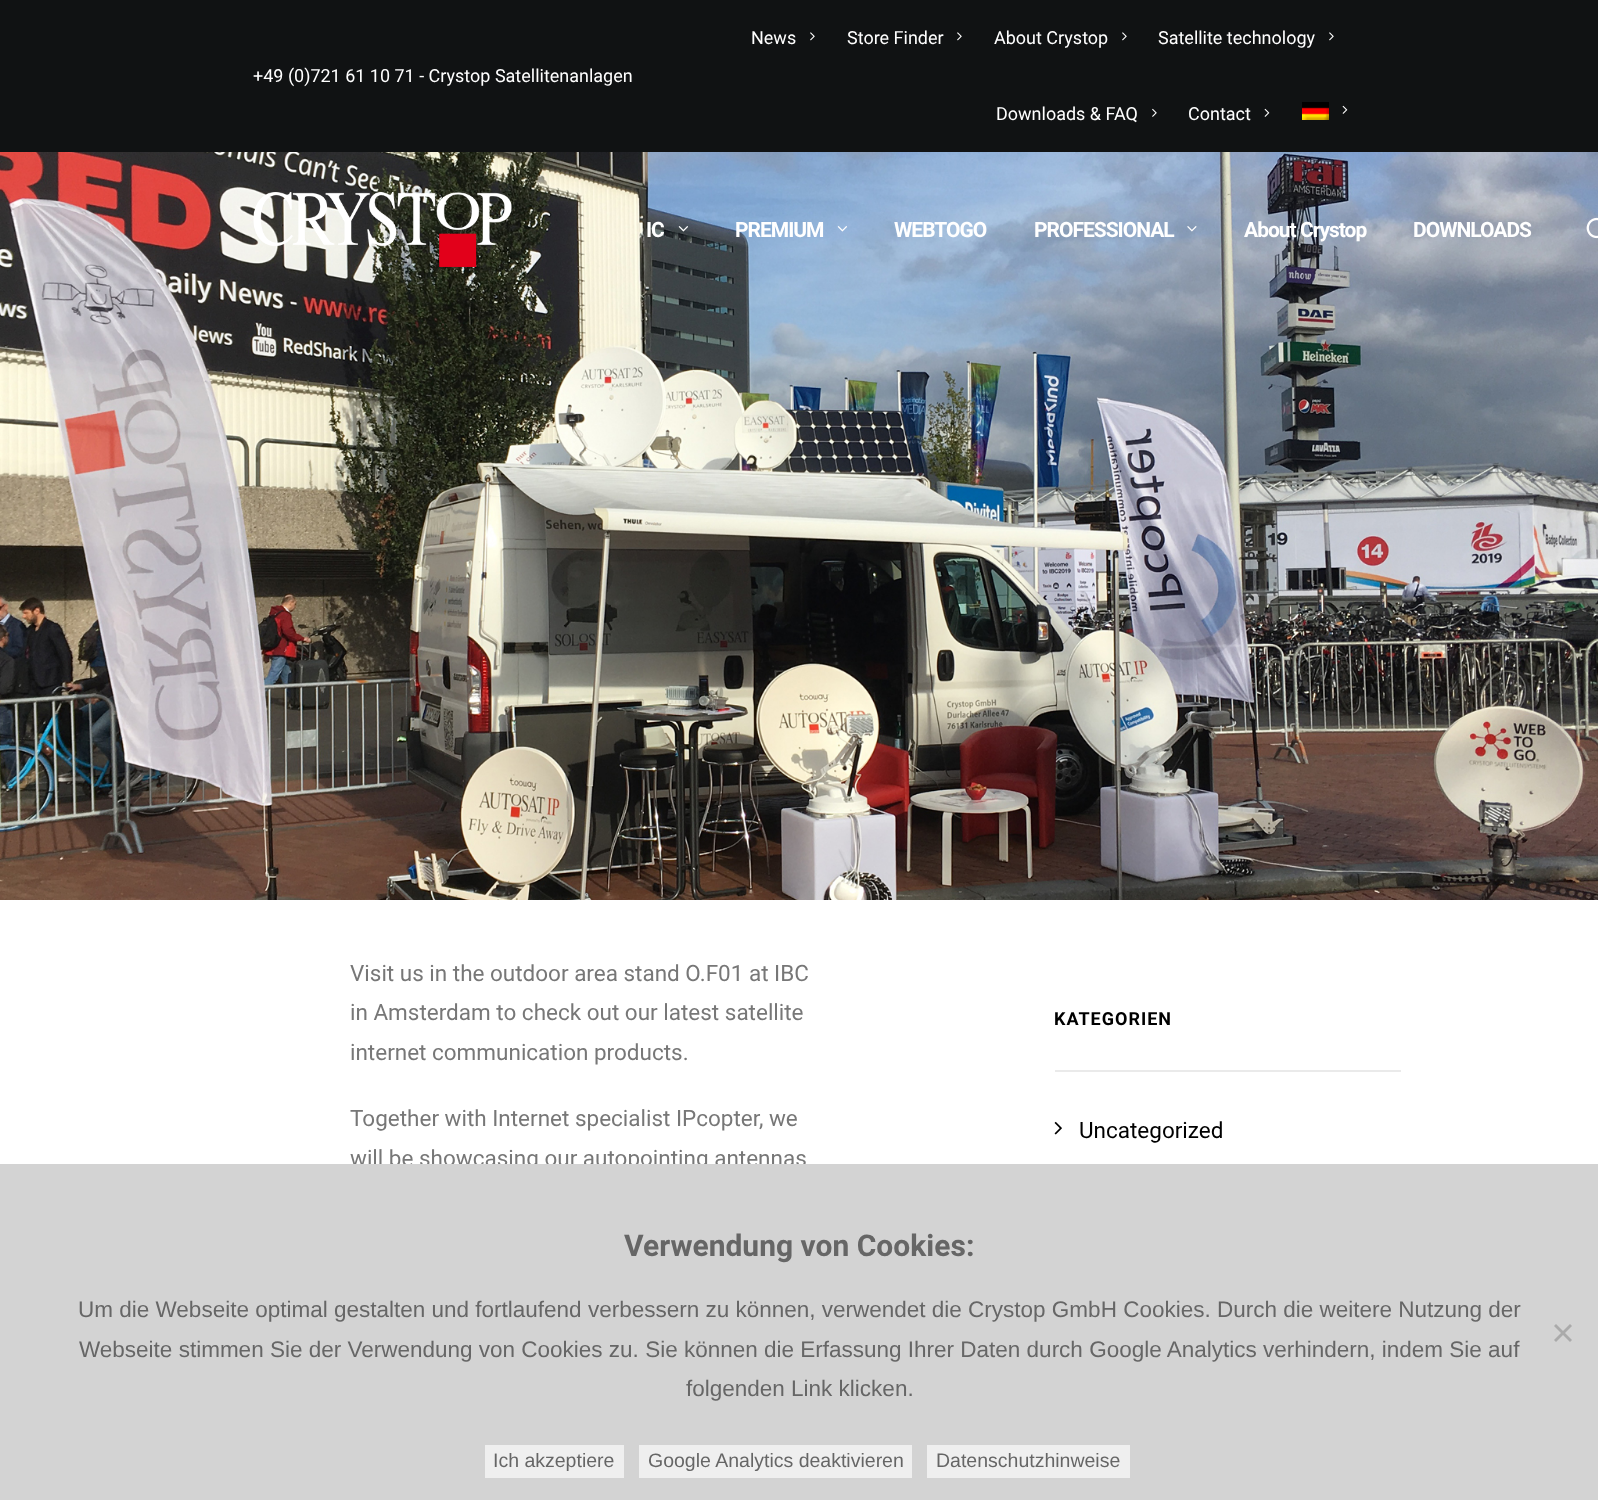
<svg xmlns="http://www.w3.org/2000/svg" width="1598" height="1500" viewBox="0 0 1598 1500">
  <style>
    .t1 { font: 18px Roboto; fill: #fff; }
    .t2 { font: bold 21px Roboto; letter-spacing: -1px; fill: #fff; }
    .t3 { font: 22.5px Roboto; fill: #777; }
    .t4 { font: bold 18px Roboto; letter-spacing: 1px; fill: #000; }
    .t5 { font: 22.5px Roboto; fill: #000; }
    .t6 { font: bold 30px Roboto; fill: #666; }
    .t7 { font: 22.5px Liberation Sans; fill: #666; }
    .t8 { font: 19.5px Liberation Sans; fill: #666; }
  </style>
  <rect width="100%" height="100%" fill="#fff"/>
  <rect x="0" y="0" width="1598" height="152" fill="#101213"/>
  <text x="253" y="82" class="t1">+49 (0)721 61 10 71 - Crystop Satellitenanlagen</text>
  <text x="751" y="44" class="t1">News</text>
  <image x="810" y="32" width="5" height="9" href="images/1.png"/>
  <text x="847" y="44" class="t1">Store Finder</text>
  <image x="957" y="32" width="5" height="9" href="images/1.png"/>
  <text x="994" y="44" class="t1">About Crystop</text>
  <image x="1122" y="32" width="5" height="9" href="images/1.png"/>
  <text x="1158" y="44" class="t1">Satellite technology</text>
  <image x="1329" y="32" width="5" height="9" href="images/1.png"/>
  <text x="996" y="120" class="t1">Downloads &amp; FAQ</text>
  <image x="1152" y="108" width="5" height="9" href="images/2.png"/>
  <text x="1188" y="120" class="t1">Contact</text>
  <image x="1264" y="108" width="6" height="9" href="images/3.png"/>
  <image x="1302" y="102" width="27" height="18" href="images/4.png"/>
  <image x="1342" y="105" width="6" height="9" href="images/3.png"/>
  <image x="0" y="152" width="1598" height="748" href="images/10.png"/>
  <image x="253" y="192" width="259" height="75" href="images/5.png"/>
  <text x="646" y="237" class="t2">IC</text>
  <image x="678" y="226" width="10" height="6" href="images/6.png"/>
  <text x="735" y="237" class="t2">PREMIUM</text>
  <image x="837" y="226" width="10" height="6" href="images/7.png"/>
  <text x="894" y="237" class="t2">WEBTOGO</text>
  <text x="1034" y="237" class="t2">PROFESSIONAL</text>
  <image x="1187" y="226" width="10" height="6" href="images/8.png"/>
  <text x="1244" y="237" class="t2">About Crystop</text>
  <text x="1413" y="237" class="t2">DOWNLOADS</text>
  <image x="1586" y="217" width="12" height="22" href="images/9.png"/>
  <text x="350" y="981" class="t3">Visit us in the outdoor area stand O.F01 at IBC</text>
  <text x="350" y="1020" class="t3">in Amsterdam to check out our latest satellite</text>
  <text x="350" y="1060" class="t3">internet communication products.</text>
  <text x="350" y="1126" class="t3">Together with Internet specialist IPcopter, we</text>
  <text x="350" y="1166" class="t3">will be showcasing our autopointing antennas</text>
  <rect x="1055" y="1070" width="346" height="2" fill="#eaeaea"/>
  <text x="1054" y="1025" class="t4">KATEGORIEN</text>
  <image x="1054" y="1121" width="8" height="14" href="images/11.png"/>
  <text x="1079" y="1138" class="t5">Uncategorized</text>
  <rect x="0" y="1164" width="1598" height="336" fill="#d3d3d3"/>
  <text x="624" y="1256" class="t6">Verwendung von Cookies:</text>
  <text x="78" y="1317" class="t7">Um die Webseite optimal gestalten und fortlaufend verbessern zu können, verwendet die Crystop GmbH Cookies. Durch die weitere Nutzung der</text>
  <text x="79" y="1357" class="t7">Webseite stimmen Sie der Verwendung von Cookies zu. Sie können die Erfassung Ihrer Daten durch Google Analytics verhindern, indem Sie auf</text>
  <text x="686" y="1396" class="t7">folgenden Link klicken.</text>
  <path d="M1570 1324L1572 1326L1556 1342L1554 1340Z" fill="#aaa"/>
  <path d="M1554 1326L1556 1324L1572 1340L1570 1342Z" fill="#aaa"/>
  <rect x="485" y="1445" width="139" height="33" fill="#efefef"/>
  <text x="493" y="1467" class="t8">Ich akzeptiere</text>
  <rect x="639" y="1445" width="273" height="33" fill="#efefef"/>
  <text x="648" y="1467" class="t8">Google Analytics deaktivieren</text>
  <rect x="927" y="1445" width="203" height="33" fill="#efefef"/>
  <text x="936" y="1467" class="t8">Datenschutzhinweise</text>
</svg>
